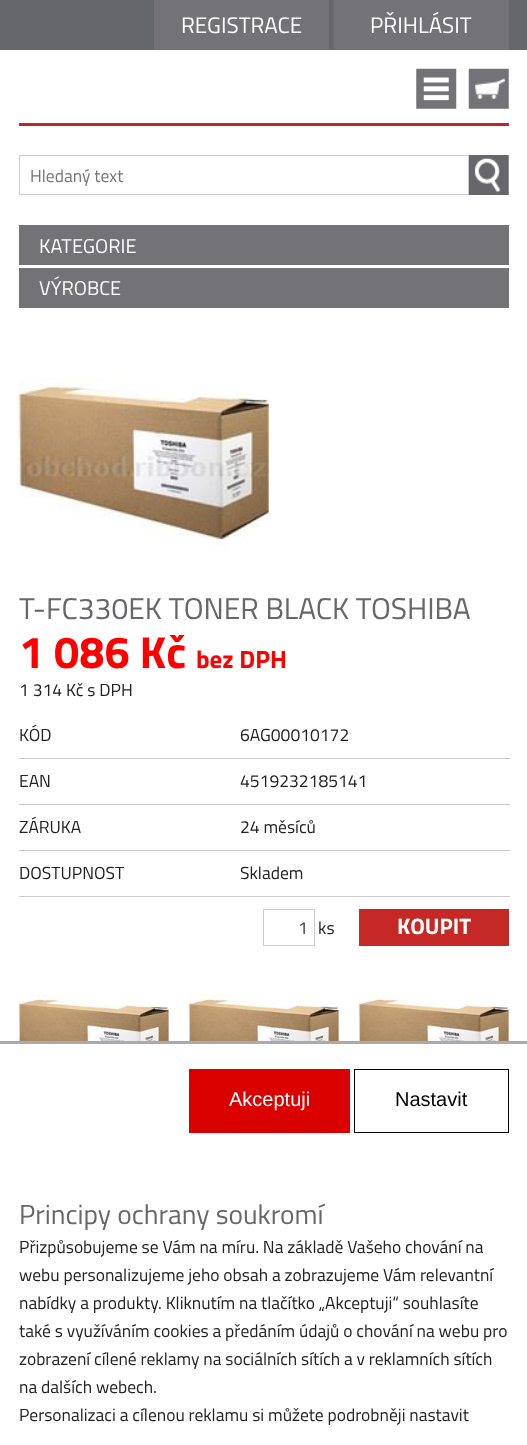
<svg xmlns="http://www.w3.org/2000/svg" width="527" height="1445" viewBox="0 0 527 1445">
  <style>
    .t1 { font: 22.5px Titillium Web; fill: #fff; }
    .t2 { font: 17.5px Titillium Web; fill: #757575; }
    .t3 { font: 20px Titillium Web; fill: #fff; }
    .t4 { font: 30px Titillium Web; fill: #67676b; }
    .t5 { font: bold 45px Titillium Web; fill: #f00; }
    .t6 { font: bold 25px Titillium Web; fill: #f00; }
    .t7 { font: 17.5px Titillium Web; fill: #222; }
    .t8 { font: 17.5px Titillium Web; fill: #404040; }
    .t9 { font: bold 22.5px Titillium Web; fill: #fff; }
    .t10 { font: 20px Liberation Sans; fill: #fff; }
    .t11 { font: 20px Liberation Sans; fill: #000; }
    .t12 { font: 27.5px Titillium Web; fill: #67676b; }
  </style>
  <rect width="100%" height="100%" fill="#fff"/>
  <rect x="0" y="0" width="527" height="50" fill="#66676b"/>
  <rect x="154" y="0" width="175" height="50" fill="#737377"/>
  <text x="181" y="33" class="t1">REGISTRACE</text>
  <rect x="334" y="0" width="175" height="50" fill="#737377"/>
  <text x="370" y="33" class="t1">PŘIHLÁSIT</text>
  <rect x="19" y="123" width="490" height="3" fill="#c6241e"/>
  <image x="468" y="68" width="41" height="41" href="images/1.png"/>
  <image x="416" y="68" width="41" height="41" href="images/2.png"/>
  <rect x="19.5" y="155.5" width="449" height="39" fill="none" stroke="#ccc"/>
  <text x="30" y="182" class="t2">Hledaný text</text>
  <image x="469" y="155" width="40" height="40" href="images/3.png"/>
  <rect x="19" y="225" width="490" height="40" fill="#737377"/>
  <text x="39" y="253" class="t3">KATEGORIE</text>
  <rect x="19" y="268" width="490" height="40" fill="#737377"/>
  <text x="39" y="295" class="t3">VÝROBCE</text>
  <image x="18" y="378" width="251" height="169" href="images/4.png"/>
  <text x="19" y="619" class="t4">T-FC330EK TONER BLACK TOSHIBA</text>
  <text x="19" y="668" class="t5">1 086 Kč</text>
  <text x="196" y="668" class="t6">bez DPH</text>
  <text x="19" y="696" class="t7">1 314 Kč s DPH</text>
  <text x="19" y="741" class="t7">KÓD</text>
  <rect x="19" y="758" width="491" height="1" fill="#cacacb"/>
  <text x="240" y="741" class="t7">6AG00010172</text>
  <text x="19" y="787" class="t7">EAN</text>
  <rect x="19" y="804" width="491" height="1" fill="#cacacb"/>
  <text x="240" y="787" class="t7">4519232185141</text>
  <text x="19" y="833" class="t7">ZÁRUKA</text>
  <rect x="19" y="850" width="491" height="1" fill="#cacacb"/>
  <text x="240" y="833" class="t7">24 měsíců</text>
  <text x="19" y="879" class="t7">DOSTUPNOST</text>
  <rect x="19" y="896" width="491" height="1" fill="#cacacb"/>
  <text x="240" y="879" class="t7">Skladem</text>
  <rect x="263.5" y="909.5" width="51" height="36" fill="none" stroke="#ccc"/>
  <text x="298" y="934" class="t8">1</text>
  <text x="318" y="934" class="t7">ks</text>
  <rect x="359" y="909" width="150" height="37" fill="#c62825"/>
  <text x="397" y="934" class="t9">KOUPIT</text>
  <image x="18" y="994" width="151" height="47" href="images/5.png"/>
  <image x="188" y="994" width="151" height="47" href="images/6.png"/>
  <image x="358" y="994" width="151" height="47" href="images/7.png"/>
  <rect x="0" y="1041" width="527" height="3" fill="#aaa9ac"/>
  <rect x="189" y="1069" width="161" height="64" fill="#db0000"/>
  <text x="229" y="1106" class="t10">Akceptuji</text>
  <rect x="354.5" y="1069.5" width="154" height="63" fill="none" stroke="#000"/>
  <text x="395" y="1106" class="t11">Nastavit</text>
  <text x="19" y="1224" class="t12">Principy ochrany soukromí</text>
  <text x="19" y="1253" class="t7">Přizpůsobujeme se Vám na míru. Na základě Vašeho chování na</text>
  <text x="19" y="1281" class="t7">webu personalizujeme jeho obsah a zobrazujeme Vám relevantní</text>
  <text x="19" y="1309" class="t7">nabídky a produkty. Kliknutím na tlačítko „Akceptuji“ souhlasíte</text>
  <text x="19" y="1337" class="t7">také s využíváním cookies a předáním údajů o chování na webu pro</text>
  <text x="19" y="1365" class="t7">zobrazení cílené reklamy na sociálních sítích a v reklamních sítích</text>
  <text x="19" y="1393" class="t7">na dalších webech.</text>
  <text x="19" y="1421" class="t7">Personalizaci a cílenou reklamu si můžete podrobněji nastavit</text>
</svg>
